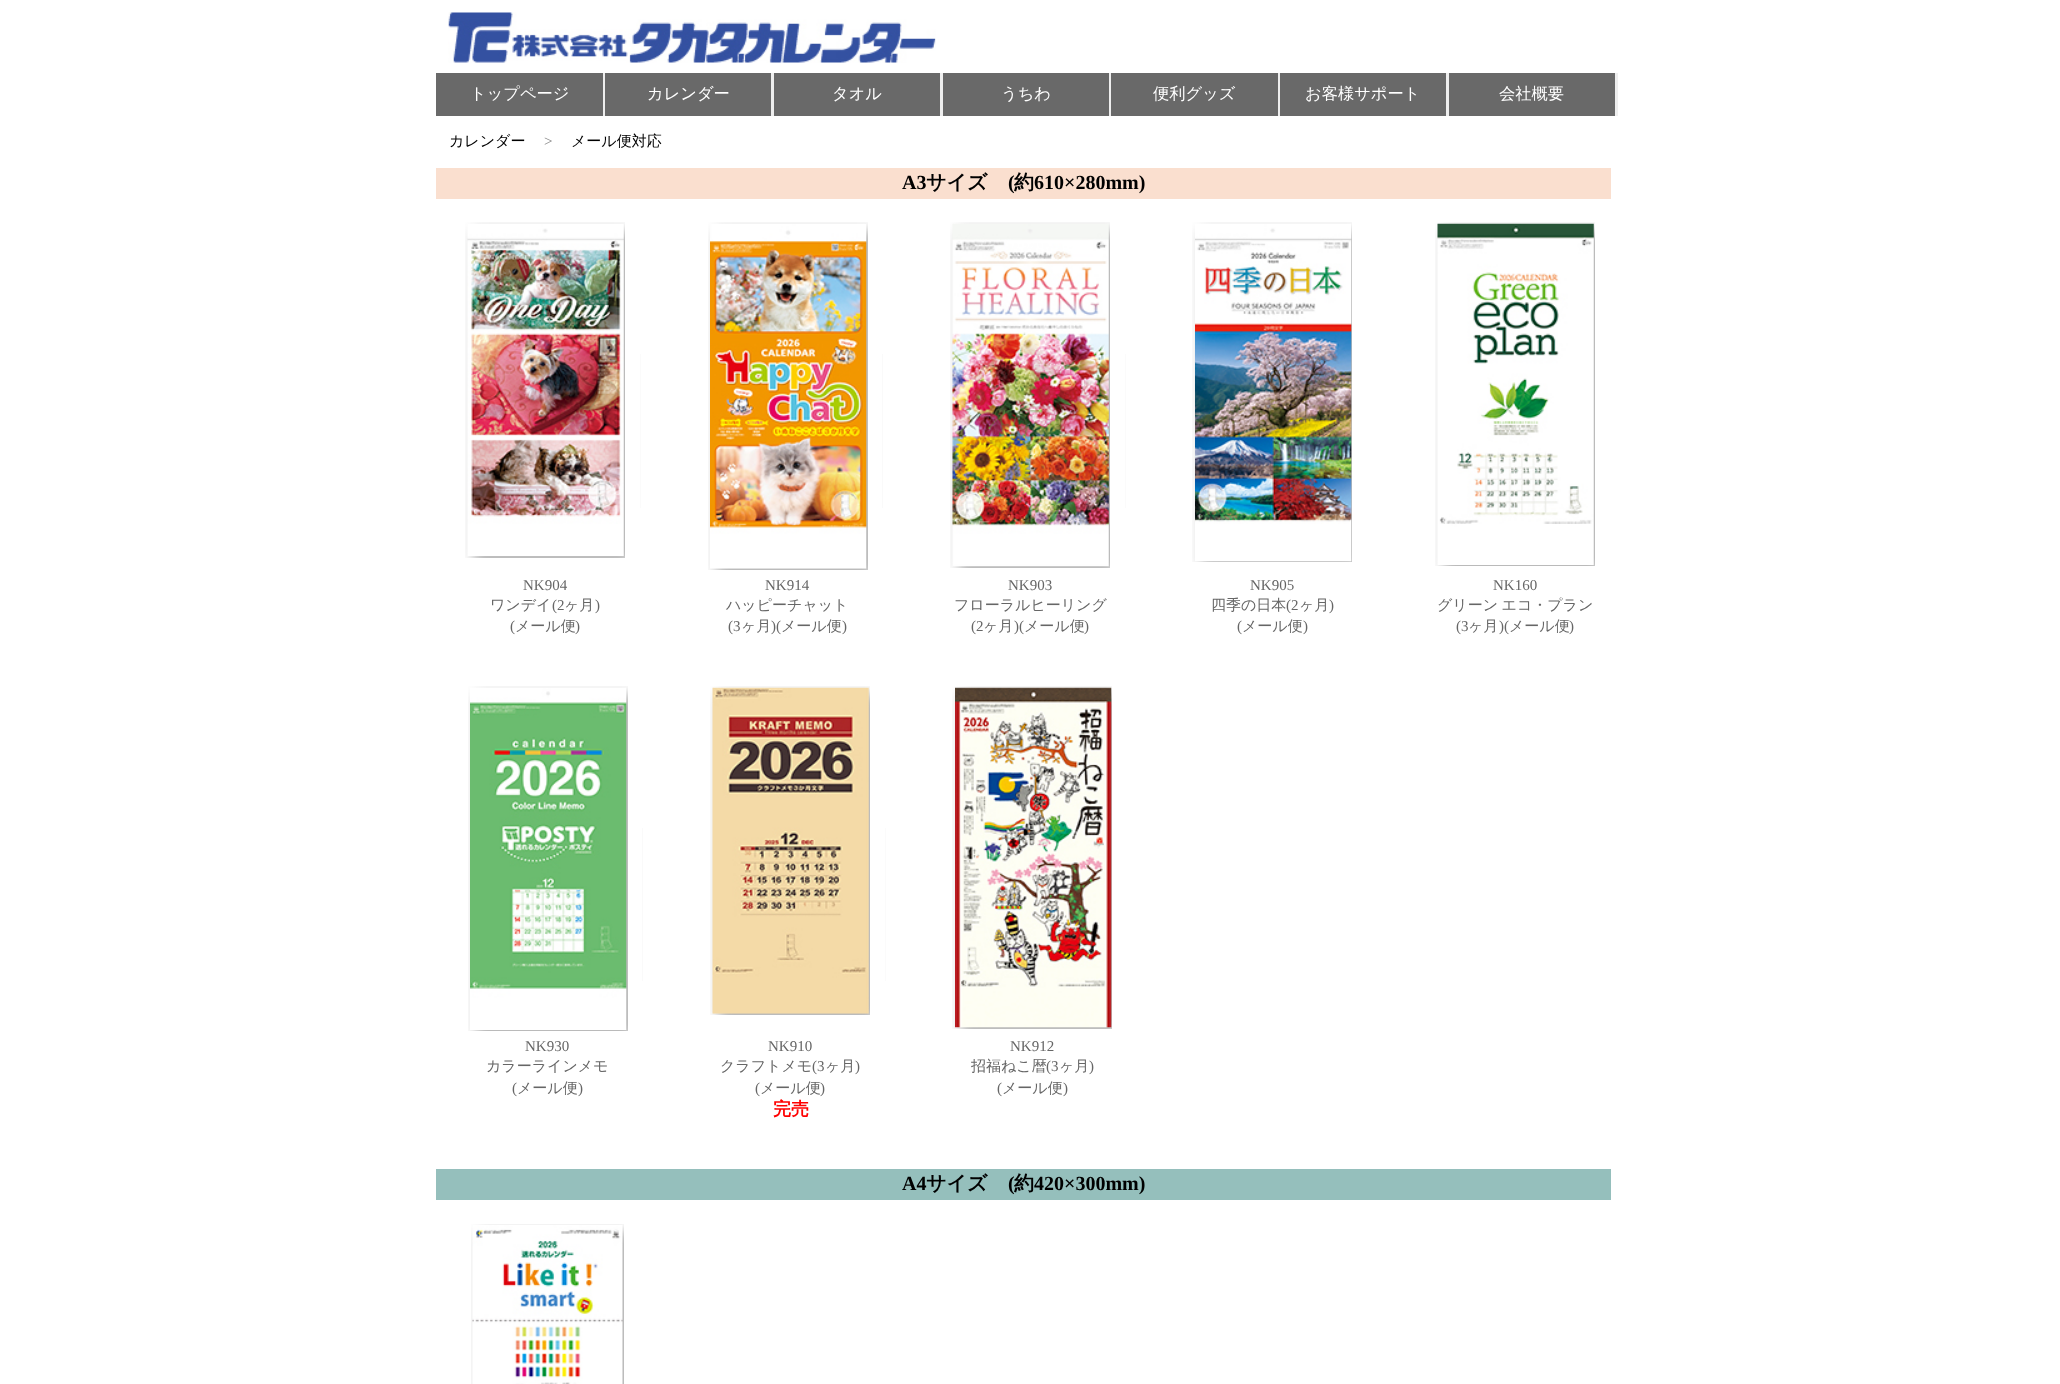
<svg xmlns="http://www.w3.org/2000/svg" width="2060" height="1384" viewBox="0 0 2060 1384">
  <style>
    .t1 { font: 500 16.25px WenQuanYi Zen Hei; fill: #fff; }
    .t2 { font: 500 15px WenQuanYi Zen Hei; fill: #000; }
    .t3 { font: 15px Liberation Serif; fill: #888; }
    .t4 { font: bold 20px Liberation Serif; fill: #000; }
    .t5 { font: bold 20px WenQuanYi Zen Hei; fill: #000; }
    .t6 { font: 15px Liberation Serif; fill: #666; }
    .t7 { font: 500 15px WenQuanYi Zen Hei; fill: #666; }
    .t8 { font: bold 18px WenQuanYi Zen Hei; fill: #f00; }
  </style>
  <rect width="100%" height="100%" fill="#fff"/>
  <image x="448" y="12" width="488" height="51" href="images/1.png"/>
  <rect x="436" y="73" width="167" height="43" fill="#696969"/>
  <rect x="603" y="73" width="2" height="43" fill="#eee"/>
  <text x="470" y="99" class="t1">トップページ</text>
  <rect x="605" y="73" width="166" height="43" fill="#696969"/>
  <rect x="771" y="73" width="3" height="43" fill="#eee"/>
  <text x="647" y="99" class="t1">カレンダー</text>
  <rect x="774" y="73" width="166" height="43" fill="#696969"/>
  <rect x="940" y="73" width="3" height="43" fill="#eee"/>
  <text x="832" y="99" class="t1">タオル</text>
  <rect x="943" y="73" width="166" height="43" fill="#696969"/>
  <rect x="1109" y="73" width="2" height="43" fill="#eee"/>
  <text x="1001" y="99" class="t1">うちわ</text>
  <rect x="1111" y="73" width="167" height="43" fill="#696969"/>
  <rect x="1278" y="73" width="2" height="43" fill="#eee"/>
  <text x="1153" y="99" class="t1">便利グッズ</text>
  <rect x="1280" y="73" width="166" height="43" fill="#696969"/>
  <rect x="1446" y="73" width="3" height="43" fill="#eee"/>
  <text x="1305" y="99" class="t1">お客様サポート</text>
  <rect x="1449" y="73" width="166" height="43" fill="#696969"/>
  <rect x="1615" y="73" width="3" height="43" fill="#eee"/>
  <text x="1499" y="99" class="t1">会社概要</text>
  <text x="449" y="146" class="t2">カレンダー</text>
  <text x="544" y="146" class="t3">&gt;</text>
  <text x="571" y="146" class="t2">メール便対応</text>
  <rect x="436" y="168" width="1175" height="31" fill="#fadfcf"/>
  <text x="902" y="189" class="t4">A3</text>
  <text x="926" y="189" class="t5">サイズ</text>
  <text x="1008" y="189" class="t4">(</text>
  <text x="1014" y="189" class="t5">約</text>
  <text x="1034" y="189" class="t4">610×280mm)</text>
  <image x="465" y="222" width="160" height="336" href="images/2.png"/>
  <rect x="640" y="354" width="1" height="154" fill="#fbfbfb"/>
  <image x="708" y="222" width="160" height="348" href="images/3.png"/>
  <rect x="882" y="354" width="1" height="154" fill="#fafafa"/>
  <image x="950" y="222" width="160" height="346" href="images/4.png"/>
  <rect x="1125" y="354" width="1" height="154" fill="#fbfbfb"/>
  <image x="1192" y="222" width="160" height="340" href="images/5.png"/>
  <image x="1435" y="222" width="160" height="344" href="images/6.png"/>
  <text x="523" y="590" class="t6">NK904</text>
  <text x="490" y="610" class="t7">ワンデイ</text>
  <text x="552" y="610" class="t6">(2</text>
  <text x="564" y="610" class="t7">ヶ月</text>
  <text x="595" y="610" class="t6">)</text>
  <text x="510" y="631" class="t6">(</text>
  <text x="515" y="631" class="t7">メール便</text>
  <text x="575" y="631" class="t6">)</text>
  <text x="765" y="590" class="t6">NK914</text>
  <text x="726" y="610" class="t7">ハッピーチャット</text>
  <text x="728" y="631" class="t6">(3</text>
  <text x="741" y="631" class="t7">ヶ月</text>
  <text x="771" y="631" class="t6">)(</text>
  <text x="781" y="631" class="t7">メール便</text>
  <text x="842" y="631" class="t6">)</text>
  <text x="1008" y="590" class="t6">NK903</text>
  <text x="954" y="610" class="t7">フローラルヒーリング</text>
  <text x="971" y="631" class="t6">(2</text>
  <text x="983" y="631" class="t7">ヶ月</text>
  <text x="1014" y="631" class="t6">)(</text>
  <text x="1024" y="631" class="t7">メール便</text>
  <text x="1084" y="631" class="t6">)</text>
  <text x="1250" y="590" class="t6">NK905</text>
  <text x="1211" y="610" class="t7">四季の日本</text>
  <text x="1286" y="610" class="t6">(2</text>
  <text x="1299" y="610" class="t7">ヶ月</text>
  <text x="1329" y="610" class="t6">)</text>
  <text x="1237" y="631" class="t6">(</text>
  <text x="1242" y="631" class="t7">メール便</text>
  <text x="1303" y="631" class="t6">)</text>
  <text x="1493" y="590" class="t6">NK160</text>
  <text x="1437" y="610" word-spacing="-1" class="t7">グリーン エコ・プラン</text>
  <text x="1456" y="631" class="t6">(3</text>
  <text x="1468" y="631" class="t7">ヶ月</text>
  <text x="1499" y="631" class="t6">)(</text>
  <text x="1509" y="631" class="t7">メール便</text>
  <text x="1569" y="631" class="t6">)</text>
  <image x="468" y="686" width="160" height="345" href="images/7.png"/>
  <rect x="642" y="828" width="1" height="153" fill="#fafafa"/>
  <image x="710" y="686" width="160" height="329" href="images/8.png"/>
  <rect x="885" y="828" width="1" height="153" fill="#fbfbfb"/>
  <image x="952" y="686" width="160" height="343" href="images/9.png"/>
  <text x="525" y="1051" class="t6">NK930</text>
  <text x="486" y="1071" class="t7">カラーラインメモ</text>
  <text x="512" y="1093" class="t6">(</text>
  <text x="517" y="1093" class="t7">メール便</text>
  <text x="578" y="1093" class="t6">)</text>
  <text x="768" y="1051" class="t6">NK910</text>
  <text x="720" y="1071" class="t7">クラフトメモ</text>
  <text x="812" y="1071" class="t6">(3</text>
  <text x="825" y="1071" class="t7">ヶ月</text>
  <text x="855" y="1071" class="t6">)</text>
  <text x="755" y="1093" class="t6">(</text>
  <text x="760" y="1093" class="t7">メール便</text>
  <text x="820" y="1093" class="t6">)</text>
  <text x="773" y="1115" class="t8">完売</text>
  <text x="1010" y="1051" class="t6">NK912</text>
  <text x="971" y="1071" class="t7">招福ねこ暦</text>
  <text x="1046" y="1071" class="t6">(3</text>
  <text x="1059" y="1071" class="t7">ヶ月</text>
  <text x="1089" y="1071" class="t6">)</text>
  <text x="997" y="1093" class="t6">(</text>
  <text x="1002" y="1093" class="t7">メール便</text>
  <text x="1063" y="1093" class="t6">)</text>
  <rect x="436" y="1169" width="1175" height="31" fill="#95bfbc"/>
  <text x="902" y="1190" class="t4">A4</text>
  <text x="926" y="1190" class="t5">サイズ</text>
  <text x="1008" y="1190" class="t4">(</text>
  <text x="1014" y="1190" class="t5">約</text>
  <text x="1034" y="1190" class="t4">420×300mm)</text>
  <image x="471" y="1224" width="153" height="160" href="images/10.png"/>
</svg>
